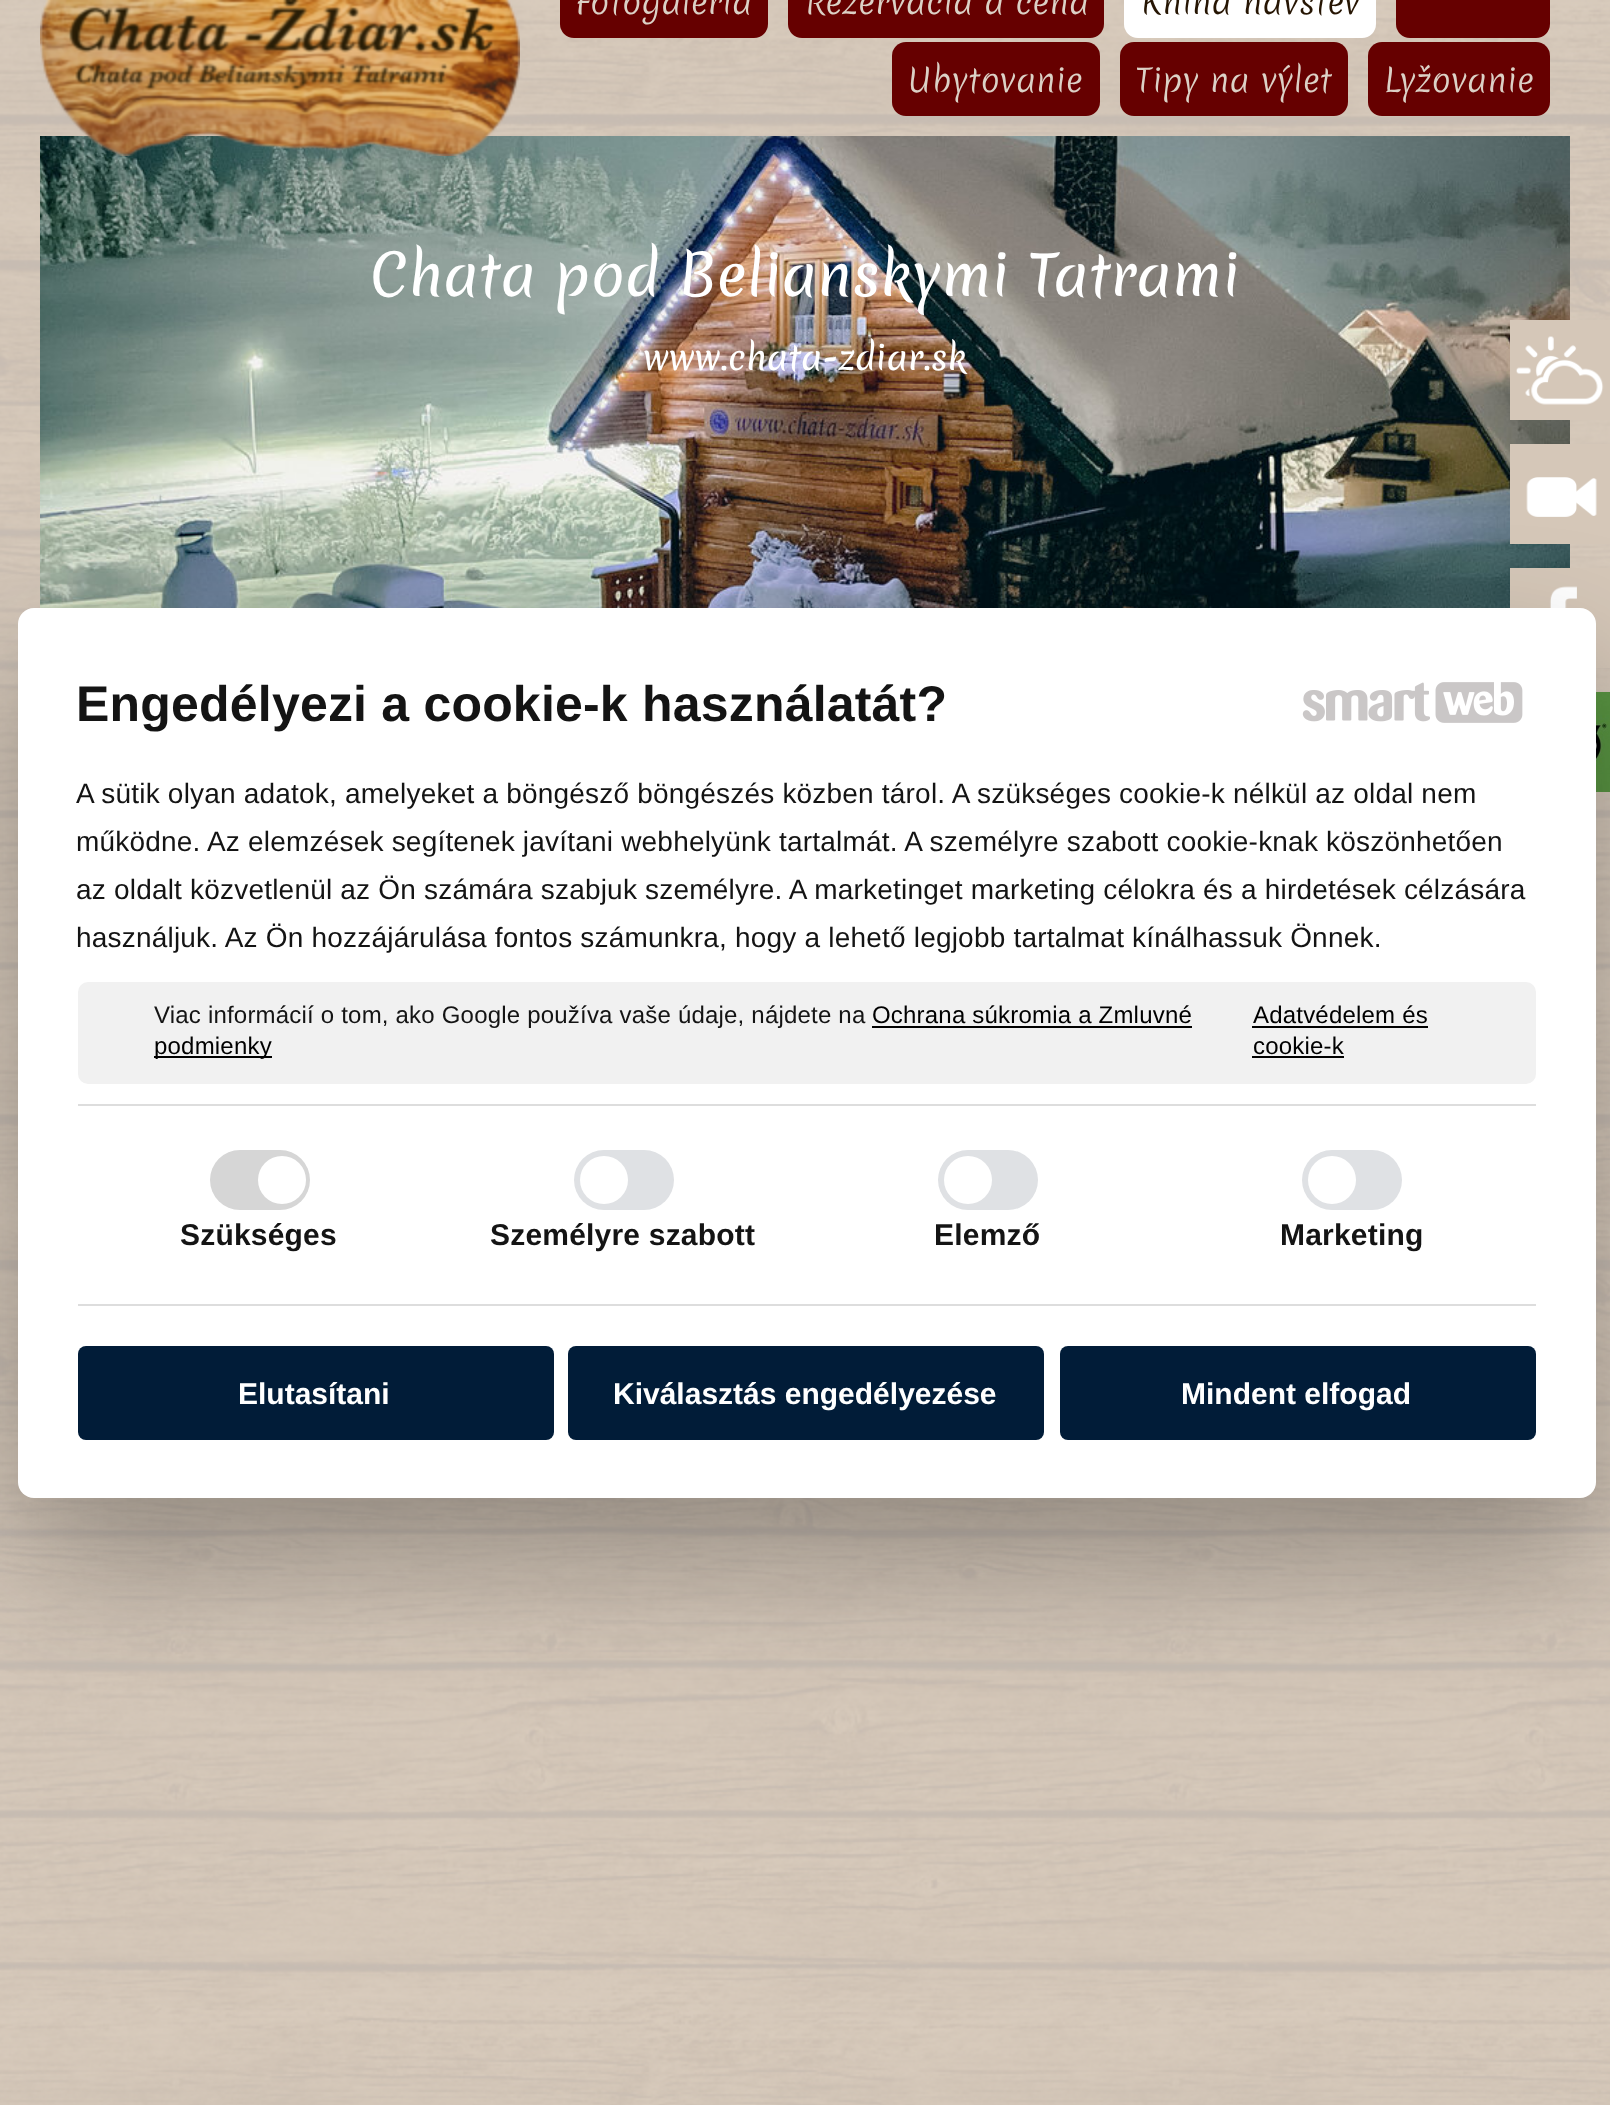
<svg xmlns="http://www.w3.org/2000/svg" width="1610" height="2105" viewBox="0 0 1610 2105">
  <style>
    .t1 { font: 300 32px Merienda; fill: #dcd1c6; }
    .t2 { font: 300 32px Merienda; fill: #261503; }
    .t3 { font: 56px Merienda; fill: #fff; }
    .t4 { font: 33.5px Merienda; fill: #fff; }
    .t5 { font: bold 50px Liberation Sans; letter-spacing: 0.2px; fill: #141414; }
    .t6 { font: 28px Liberation Sans; letter-spacing: 0.2px; fill: #141414; }
    .t7 { font: 24px Liberation Sans; letter-spacing: 0.2px; fill: #141414; }
    .t8 { font: 24px Liberation Sans; letter-spacing: 0.2px; fill: #000; }
    .t9 { font: bold 30px Liberation Sans; letter-spacing: 0.2px; fill: #141414; }
    .t10 { font: bold 30px Liberation Sans; fill: #fff; }
  </style>
  <rect width="100%" height="100%" fill="#fff"/>
  <image x="0" y="0" width="1610" height="2105" href="images/1.png"/>
  <image x="40" y="136" width="1530" height="472" href="images/3.png"/>
  <image x="40" y="0" width="480" height="156" href="images/2.png"/>
  <rect x="560" y="-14" width="208" height="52" rx="14" fill="#600"/>
  <text x="575" y="14" class="t1">Fotogaléria</text>
  <rect x="788" y="-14" width="316" height="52" rx="14" fill="#600"/>
  <text x="805" y="14" class="t1">Rezervácia a cena</text>
  <rect x="1124" y="-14" width="252" height="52" rx="14" fill="#fff"/>
  <text x="1141" y="14" class="t2">Kniha návštev</text>
  <rect x="1396" y="-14" width="154" height="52" rx="14" fill="#600"/>
  <rect x="892" y="42" width="208" height="74" rx="14" fill="#600"/>
  <text x="908" y="92" class="t1">Ubytovanie</text>
  <rect x="1120" y="42" width="228" height="74" rx="14" fill="#600"/>
  <text x="1135" y="92" class="t1">Tipy na výlet</text>
  <rect x="1368" y="42" width="182" height="74" rx="14" fill="#600"/>
  <text x="1384" y="92" class="t1">Lyžovanie</text>
  <text x="370" y="296" class="t3">Chata pod Belianskymi Tatrami</text>
  <text x="643" y="370" class="t4">www.chata-zdiar.sk</text>
  <image x="1510" y="444" width="100" height="100" href="images/7.png"/>
  <image x="1510" y="568" width="100" height="100" href="images/8.png"/>
  <image x="1596" y="692" width="14" height="100" href="images/9.png"/>
  <rect x="18" y="672" width="1578" height="890" rx="16" fill="#0000004d" filter="blur(68px)"/>
  <rect x="18" y="608" width="1578" height="890" rx="16" fill="#fff"/>
  <text x="76" y="721" class="t5">Engedélyezi a cookie-k használatát?</text>
  <image x="1302" y="682" width="128" height="40" href="images/4.png"/>
  <image x="1435" y="682" width="88" height="41" href="images/5.png"/>
  <text x="76" y="803" class="t6">A sütik olyan adatok, amelyeket a böngésző böngészés közben tárol. A szükséges cookie-k nélkül az oldal nem</text>
  <text x="76" y="851" class="t6">működne. Az elemzések segítenek javítani webhelyünk tartalmát. A személyre szabott cookie-knak köszönhetően</text>
  <text x="76" y="899" class="t6">az oldalt közvetlenül az Ön számára szabjuk személyre. A marketinget marketing célokra és a hirdetések célzására</text>
  <text x="76" y="947" class="t6">használjuk. Az Ön hozzájárulása fontos számunkra, hogy a lehető legjobb tartalmat kínálhassuk Önnek.</text>
  <rect x="78" y="982" width="1458" height="102" rx="10" fill="#f1f1f1"/>
  <text x="154" y="1023" class="t7">Viac informácií o tom, ako Google používa vaše údaje, nájdete na</text>
  <text x="872" y="1023" class="t8">Ochrana súkromia a Zmluvné</text>
  <rect x="872" y="1026" width="320" height="2" fill="#000"/>
  <rect x="154" y="1056" width="118" height="2" fill="#000"/>
  <text x="154" y="1054" class="t8">podmienky</text>
  <text x="1253" y="1023" class="t8">Adatvédelem és</text>
  <rect x="1252" y="1026" width="176" height="2" fill="#000"/>
  <text x="1253" y="1054" class="t8">cookie-k</text>
  <rect x="1252" y="1056" width="92" height="2" fill="#000"/>
  <rect x="78" y="1104" width="1458" height="2" fill="#ddd"/>
  <rect x="78" y="1304" width="1458" height="2" fill="#ddd"/>
  <rect x="210" y="1150" width="100" height="60" rx="30" fill="#d6d6d6"/>
  <circle cx="282" cy="1180" r="24" fill="#fff"/>
  <text x="180" y="1245" class="t9">Szükséges</text>
  <rect x="574" y="1150" width="100" height="60" rx="30" fill="#dfe1e4"/>
  <circle cx="604" cy="1180" r="24" fill="#fff"/>
  <text x="490" y="1245" class="t9">Személyre szabott</text>
  <rect x="938" y="1150" width="100" height="60" rx="30" fill="#dfe1e4"/>
  <circle cx="968" cy="1180" r="24" fill="#fff"/>
  <text x="934" y="1245" class="t9">Elemző</text>
  <rect x="1302" y="1150" width="100" height="60" rx="30" fill="#dfe1e4"/>
  <circle cx="1332" cy="1180" r="24" fill="#fff"/>
  <text x="1280" y="1245" class="t9">Marketing</text>
  <rect x="78" y="1346" width="476" height="94" rx="8" fill="#011c38"/>
  <text x="238" y="1404" class="t10">Elutasítani</text>
  <rect x="568" y="1346" width="476" height="94" rx="8" fill="#011c38"/>
  <text x="613" y="1404" class="t10">Kiválasztás engedélyezése</text>
  <rect x="1060" y="1346" width="476" height="94" rx="8" fill="#011c38"/>
  <text x="1181" y="1404" class="t10">Mindent elfogad</text>
  <image x="1510" y="320" width="100" height="100" href="images/6.png"/>
</svg>
